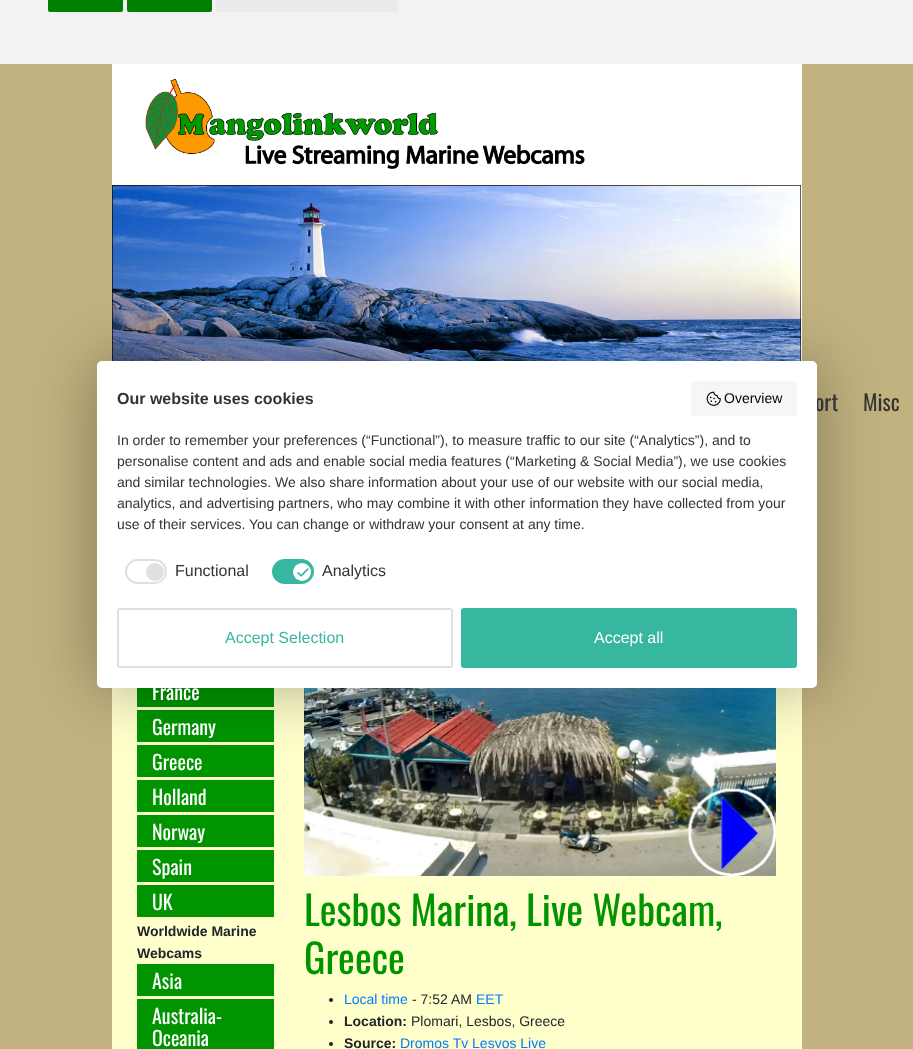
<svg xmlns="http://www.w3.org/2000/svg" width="913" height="1049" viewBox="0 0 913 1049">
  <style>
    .t1 { font: 22px Oswald; fill: #333; }
    .t2 { font: bold 16px Liberation Sans; fill: #333; }
    .t3 { font: 14px Liberation Sans; fill: #000; }
    .t4 { font: 14px Liberation Sans; fill: #333; }
    .t5 { font: 16px Liberation Sans; fill: #333; }
    .t6 { font: 16px Liberation Sans; fill: #37b79f; }
    .t7 { font: 16px Liberation Sans; fill: #fff; }
    .t8 { font: 20px Oswald; fill: #fff; }
    .t9 { font: bold 14px Liberation Sans; fill: #212529; }
    .t10 { font: 40px Oswald; fill: #009500; }
    .t11 { font: 14px Liberation Sans; fill: #007bff; }
    .t12 { font: 14px Liberation Sans; fill: #212529; }
  </style>
  <rect width="100%" height="100%" fill="#c2b280"/>
  <rect x="0" y="0" width="913" height="64" fill="#f2f2f2"/>
  <rect x="48" y="-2" width="75" height="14" rx="2" fill="#008000"/>
  <rect x="127" y="-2" width="85" height="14" rx="2" fill="#008000"/>
  <rect x="216" y="-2" width="182" height="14" rx="2" fill="#eaeaea"/>
  <rect x="112" y="64" width="690" height="297" fill="#fff"/>
  <image x="112" y="185" width="689" height="176" href="images/4.png"/>
  <rect x="112" y="688" width="690" height="361" fill="#ffc"/>
  <rect x="137" y="688" width="137" height="19" fill="#009500"/>
  <rect x="137" y="710" width="137" height="32" fill="#009500"/>
  <rect x="137" y="745" width="137" height="32" fill="#009500"/>
  <rect x="137" y="780" width="137" height="32" fill="#009500"/>
  <image x="304" y="688" width="472" height="188" href="images/5.png"/>
  <rect x="97" y="361" width="720" height="327" rx="5" fill="#00000054" filter="blur(32px)"/>
  <text x="815" y="411" class="t1">ort</text>
  <rect x="97" y="361" width="720" height="327" rx="5" fill="#fff"/>
  <text x="117" y="404" class="t2">Our website uses cookies</text>
  <rect x="691" y="381" width="106" height="35" rx="3" fill="#f6f6f6"/>
  <image x="706" y="391" width="15" height="15" href="images/1.png"/>
  <text x="724" y="403" class="t3">Overview</text>
  <text x="117" y="445" class="t4">In order to remember your preferences (“Functional”), to measure traffic to our site (“Analytics”), and to</text>
  <text x="117" y="466" class="t4">personalise content and ads and enable social media features (“Marketing &amp; Social Media”), we use cookies</text>
  <text x="117" y="487" class="t4">and similar technologies. We also share information about your use of our website with our social media,</text>
  <text x="117" y="508" class="t4">analytics, and advertising partners, who may combine it with other information they have collected from your</text>
  <text x="117" y="529" class="t4">use of their services. You can change or withdraw your consent at any time.</text>
  <rect x="126" y="560" width="40" height="23" rx="11.5" fill="none" stroke="#e0e0e0" stroke-width="2"/>
  <circle cx="155" cy="572" r="9" fill="#e0e0e0"/>
  <text x="175" y="576" class="t5">Functional</text>
  <rect x="273" y="560" width="40" height="23" rx="11.5" fill="#37b79f" stroke="#37b79f" stroke-width="2"/>
  <circle cx="302" cy="572" r="9" fill="#fff"/>
  <image x="297" y="568" width="12" height="9" href="images/2.png"/>
  <text x="322" y="576" class="t5">Analytics</text>
  <rect x="118" y="609" width="334" height="58" rx="2" fill="none" stroke="#e0e0e0" stroke-width="2"/>
  <text x="225" y="643" class="t6">Accept Selection</text>
  <rect x="462" y="609" width="334" height="58" rx="2" fill="#37b79f" stroke="#37b79f" stroke-width="2"/>
  <text x="594" y="643" class="t7">Accept all</text>
  <image x="145" y="78" width="440" height="91" href="images/3.png"/>
  <text x="863" y="411" class="t1">Misc</text>
  <text x="152" y="700" class="t8">France</text>
  <text x="152" y="735" class="t8">Germany</text>
  <text x="152" y="770" class="t8">Greece</text>
  <text x="152" y="805" class="t8">Holland</text>
  <rect x="137" y="815" width="137" height="32" fill="#009500"/>
  <text x="152" y="840" class="t8">Norway</text>
  <rect x="137" y="850" width="137" height="32" fill="#009500"/>
  <text x="152" y="875" class="t8">Spain</text>
  <rect x="137" y="885" width="137" height="32" fill="#009500"/>
  <text x="152" y="910" class="t8">UK</text>
  <text x="137" y="936" class="t9">Worldwide Marine</text>
  <text x="137" y="958" class="t9">Webcams</text>
  <rect x="137" y="964" width="137" height="32" fill="#009500"/>
  <text x="152" y="989" class="t8">Asia</text>
  <rect x="137" y="999" width="137" height="50" fill="#009500"/>
  <text x="152" y="1024" class="t8">Australia-</text>
  <text x="152" y="1046" class="t8">Oceania</text>
  <text x="304" y="926" class="t10">Lesbos Marina, Live Webcam,</text>
  <text x="304" y="974" class="t10">Greece</text>
  <circle cx="331" cy="1000" r="2" fill="#212529"/>
  <text x="344" y="1004" class="t11">Local time</text>
  <text x="412" y="1004" class="t12">- 7:52 AM</text>
  <text x="476" y="1004" class="t11">EET</text>
  <circle cx="331" cy="1022" r="2" fill="#212529"/>
  <text x="344" y="1026" class="t9">Location:</text>
  <text x="411" y="1026" class="t12">Plomari, Lesbos, Greece</text>
  <circle cx="331" cy="1044" r="2" fill="#212529"/>
  <text x="344" y="1048" class="t9">Source:</text>
  <text x="400" y="1048" class="t11">Dromos Tv Lesvos Live</text>
</svg>
